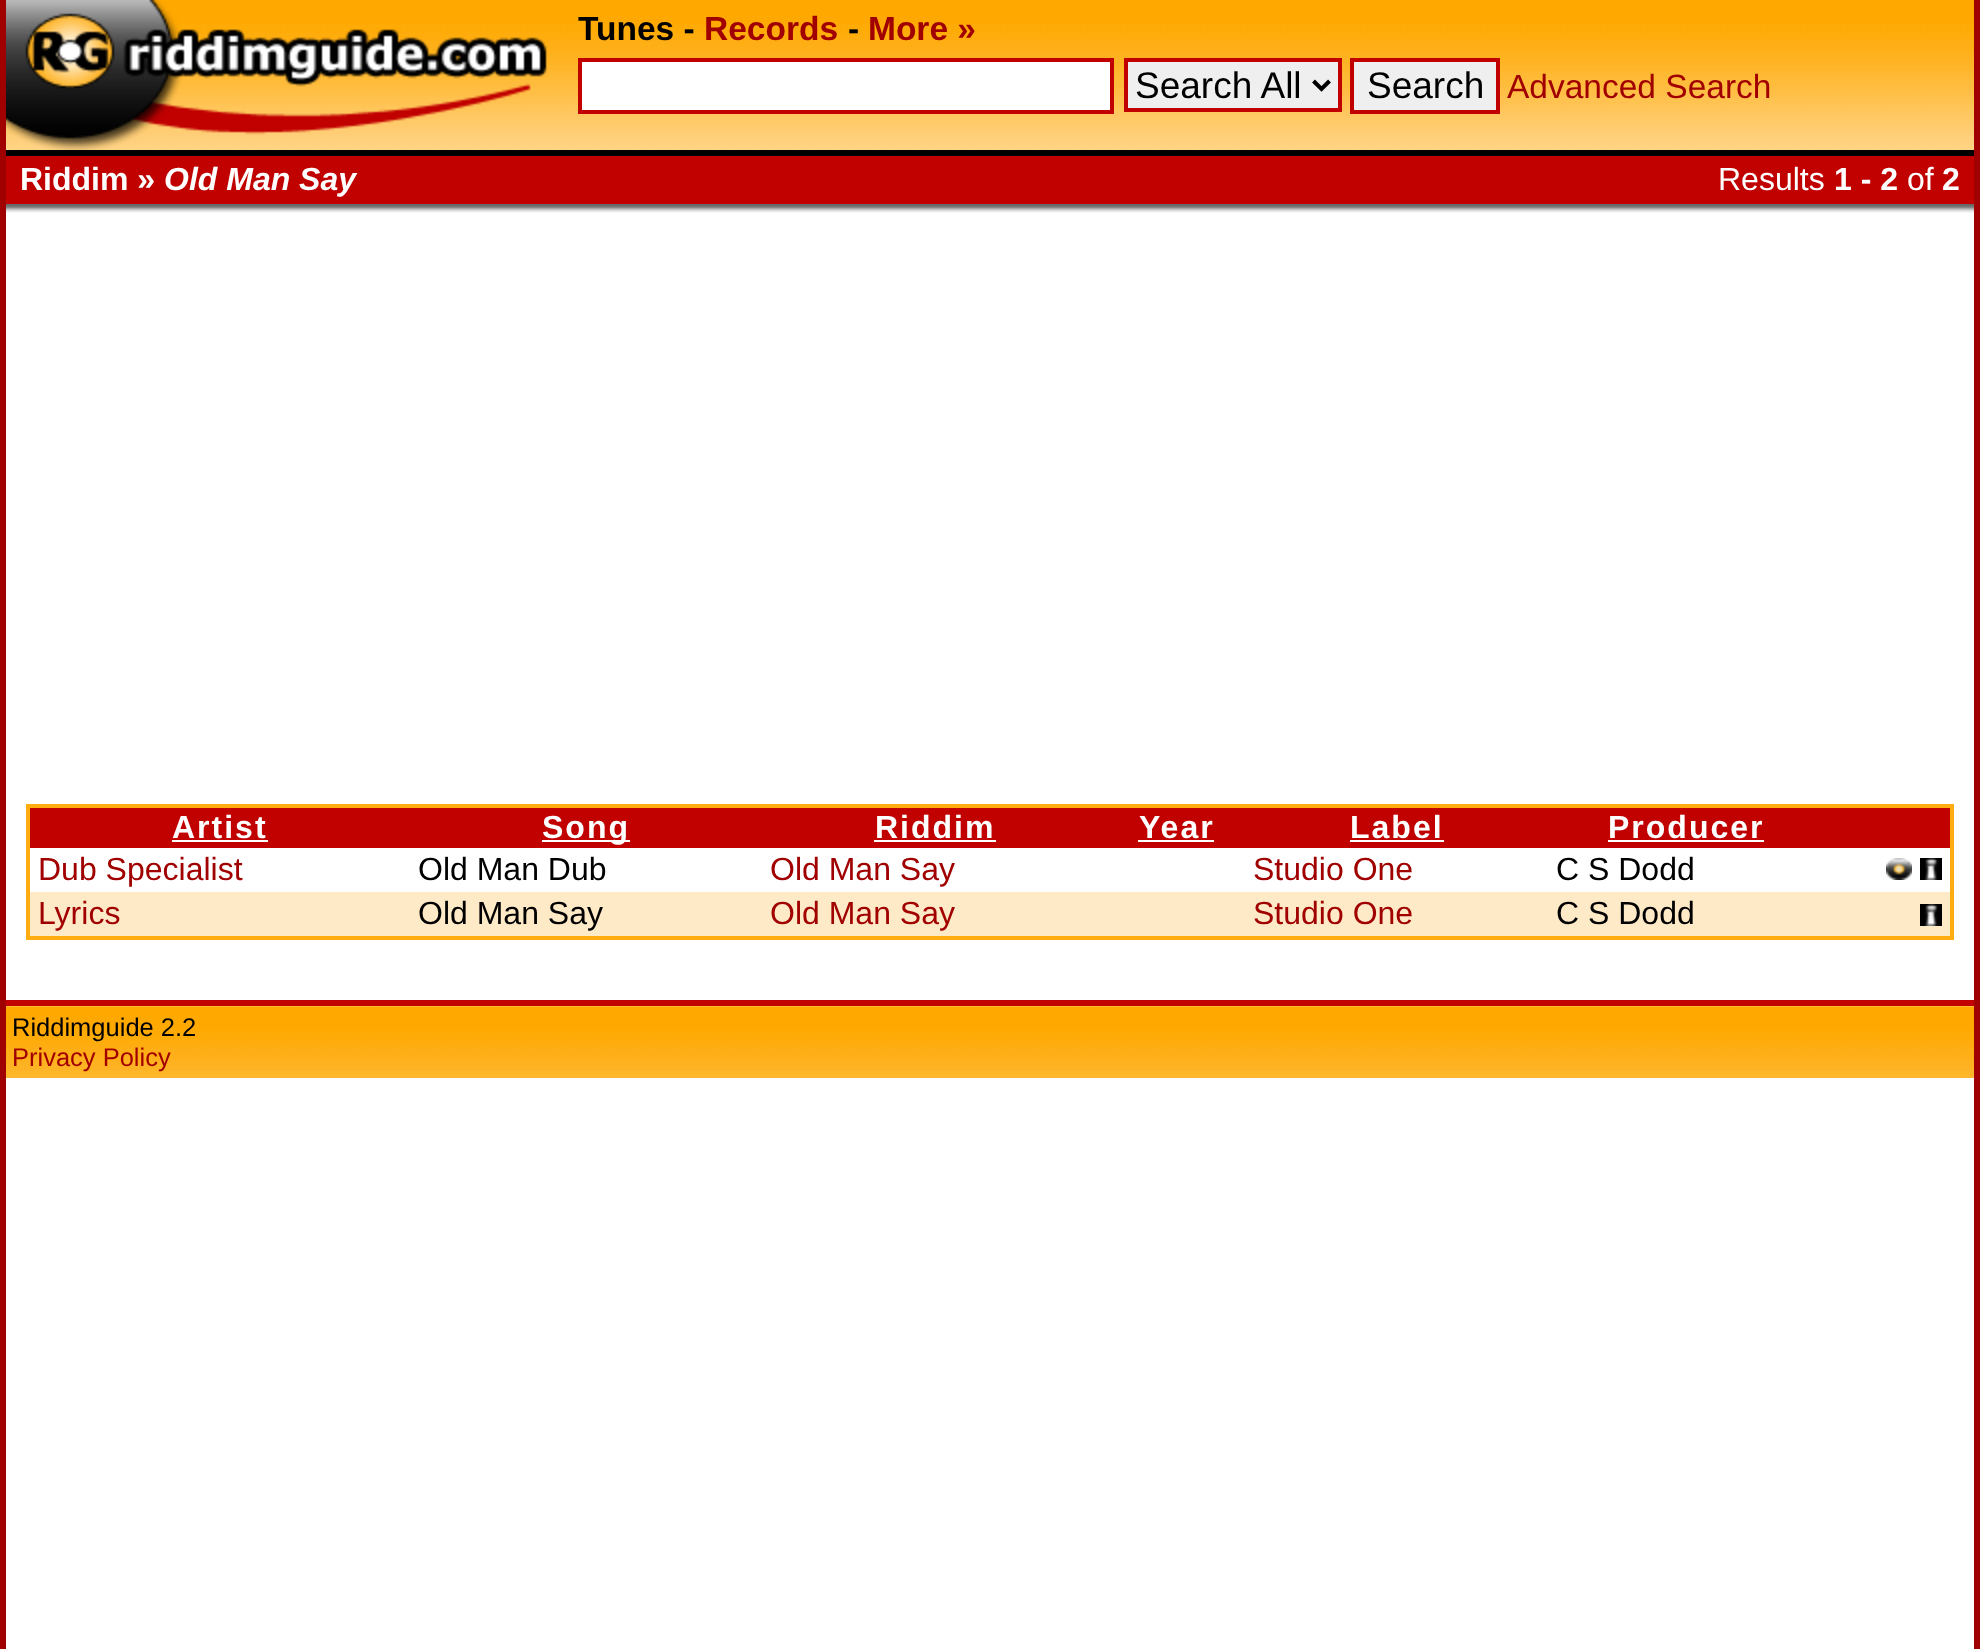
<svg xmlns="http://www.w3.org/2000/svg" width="1980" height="1649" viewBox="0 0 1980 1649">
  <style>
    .t1 { font: bold 33.5px Liberation Sans; fill: #000; }
    .t2 { font: bold 33.5px Liberation Sans; fill: #a10000; }
    .t3 { font: 37px Liberation Sans; fill: #000; }
    .t4 { font: 33.5px Liberation Sans; fill: #a10000; }
    .t5 { font: bold 32px Liberation Sans; fill: #fff; }
    .t6 { font: italic bold 32px Liberation Sans; fill: #fff; }
    .t7 { font: 32px Liberation Sans; fill: #fff; }
    .t8 { font: bold 32px Liberation Sans; letter-spacing: 2px; fill: #fff; }
    .t9 { font: 32px Liberation Sans; fill: #a10000; }
    .t10 { font: 32px Liberation Sans; fill: #000; }
    .t11 { font: 25.5px Liberation Sans; fill: #000; }
    .t12 { font: 25.5px Liberation Sans; fill: #a10000; }
  </style>
  <rect width="100%" height="100%" fill="#fff"/>
  <rect x="1974" y="0" width="6" height="1649" fill="#a10000"/>
  <rect x="0" y="0" width="6" height="1649" fill="#a10000"/>
  <image x="6" y="0" width="1968" height="150" href="images/1.png"/>
  <image x="6" y="0" width="541" height="150" href="images/2.png"/>
  <text x="578" y="40" class="t1">Tunes -</text>
  <text x="704" y="40" class="t2">Records</text>
  <text x="848" y="40" class="t1">-</text>
  <text x="868" y="40" class="t2">More »</text>
  <rect x="580" y="60" width="532" height="52" fill="#fff" stroke="#c10000" stroke-width="4"/>
  <rect x="1126" y="60" width="214" height="50" fill="#efefef" stroke="#c10000" stroke-width="4"/>
  <path d="M1313.5 81L1321.5 89L1329.5 81" fill="none" stroke="#000" stroke-width="4"/>
  <text x="1135" y="98" class="t3">Search All</text>
  <rect x="1352" y="60" width="146" height="52" fill="#efefef" stroke="#c10000" stroke-width="4"/>
  <text x="1367" y="98" class="t3">Search</text>
  <text x="1507" y="98" class="t4">Advanced Search</text>
  <rect x="6" y="156" width="1968" height="48" fill="#c10000"/>
  <rect x="6" y="150" width="1968" height="6" fill="#000"/>
  <text x="20" y="190" class="t5">Riddim »</text>
  <text x="164" y="190" class="t6">Old Man Say</text>
  <text x="1718" y="190" class="t7">Results</text>
  <text x="1834" y="190" class="t5">1 - 2</text>
  <text x="1907" y="190" class="t7">of</text>
  <text x="1942" y="190" class="t5">2</text>
  <image x="6" y="204" width="1968" height="9" href="images/3.png"/>
  <rect x="28" y="806" width="1924" height="132" fill="none" stroke="#ffac10" stroke-width="4"/>
  <rect x="30" y="808" width="1920" height="40" fill="#c10000"/>
  <text x="172" y="838" class="t8">Artist</text>
  <rect x="172" y="840" width="96" height="2" fill="#fff"/>
  <rect x="542" y="840" width="88" height="2" fill="#fff"/>
  <text x="542" y="838" class="t8">Song</text>
  <text x="875" y="838" class="t8">Riddim</text>
  <rect x="874" y="840" width="122" height="2" fill="#fff"/>
  <text x="1139" y="838" class="t8">Year</text>
  <rect x="1138" y="840" width="76" height="2" fill="#fff"/>
  <text x="1350" y="838" class="t8">Label</text>
  <rect x="1350" y="840" width="94" height="2" fill="#fff"/>
  <text x="1608" y="838" class="t8">Producer</text>
  <rect x="1608" y="840" width="156" height="2" fill="#fff"/>
  <text x="38" y="880" class="t9">Dub Specialist</text>
  <text x="418" y="880" class="t10">Old Man Dub</text>
  <text x="770" y="880" class="t9">Old Man Say</text>
  <text x="1253" y="880" class="t9">Studio One</text>
  <text x="1556" y="880" class="t10">C S Dodd</text>
  <image x="1886" y="858" width="26" height="22" href="images/4.png"/>
  <image x="1920" y="858" width="22" height="22" href="images/5.png"/>
  <rect x="30" y="892" width="1920" height="44" fill="#ffeac7"/>
  <text x="38" y="924" class="t9">Lyrics</text>
  <text x="418" y="924" class="t10">Old Man Say</text>
  <text x="770" y="924" class="t9">Old Man Say</text>
  <text x="1253" y="924" class="t9">Studio One</text>
  <text x="1556" y="924" class="t10">C S Dodd</text>
  <image x="1920" y="904" width="22" height="22" href="images/5.png"/>
  <image x="6" y="1006" width="1968" height="72" href="images/6.png"/>
  <rect x="6" y="1000" width="1968" height="6" fill="#c10000"/>
  <text x="12" y="1036" class="t11">Riddimguide 2.2</text>
  <text x="12" y="1066" class="t12">Privacy Policy</text>
</svg>
